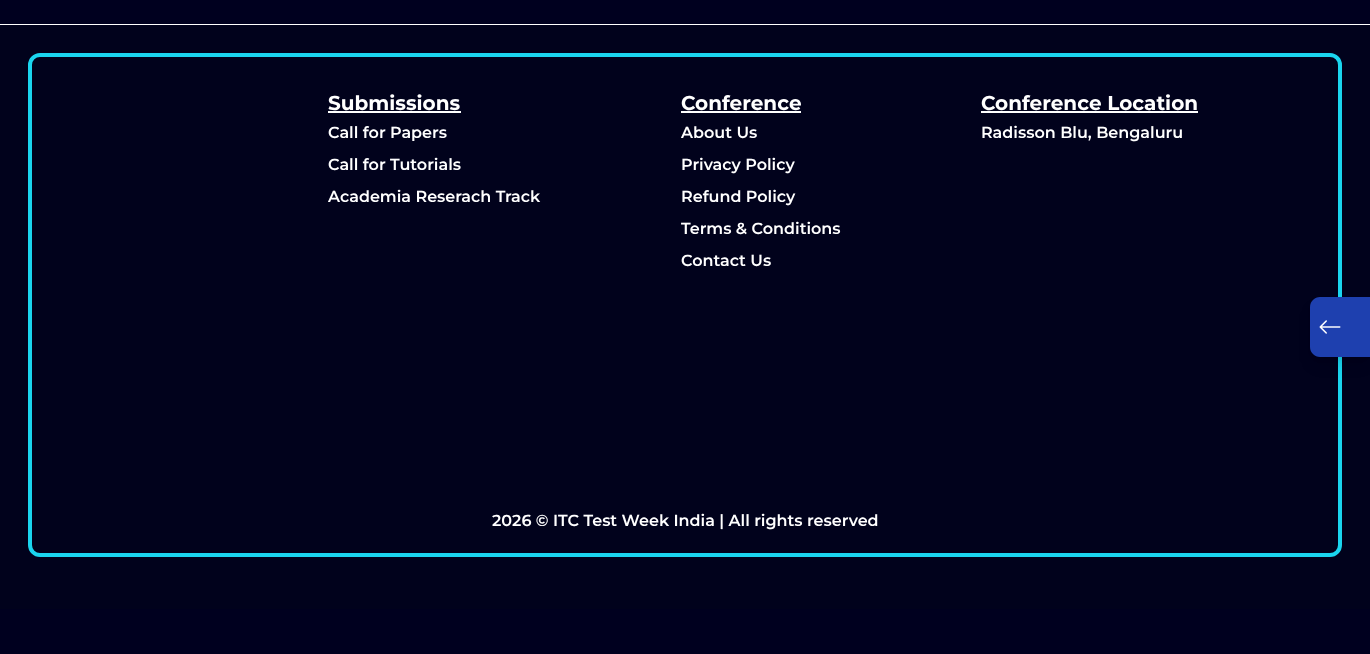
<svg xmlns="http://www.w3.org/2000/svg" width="1370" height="654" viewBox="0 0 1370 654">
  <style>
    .t1 { font: bold 20px Montserrat; fill: #fff; }
    .t2 { font: 600 16px Montserrat; fill: #fff; }
  </style>
  <rect width="100%" height="100%" fill="#00001f"/>
  <rect x="0" y="24" width="1370" height="1" fill="#fff"/>
  <rect x="0" y="25" width="1370" height="584" fill="#01021c"/>
  <rect x="30" y="55" width="1310" height="500" rx="10" fill="none" stroke="#1ad5ef" stroke-width="4"/>
  <text x="328" y="110" class="t1">Submissions</text>
  <rect x="328" y="111" width="133" height="2" fill="#fff"/>
  <text x="328" y="138" class="t2">Call for Papers</text>
  <text x="328" y="170" class="t2">Call for Tutorials</text>
  <text x="328" y="202" class="t2">Academia Reserach Track</text>
  <text x="681" y="110" class="t1">Conference</text>
  <rect x="681" y="111" width="120" height="2" fill="#fff"/>
  <text x="681" y="138" class="t2">About Us</text>
  <text x="681" y="170" class="t2">Privacy Policy</text>
  <text x="681" y="202" class="t2">Refund Policy</text>
  <text x="681" y="234" class="t2">Terms &amp; Conditions</text>
  <text x="681" y="266" class="t2">Contact Us</text>
  <text x="981" y="110" class="t1">Conference Location</text>
  <rect x="981" y="111" width="217" height="2" fill="#fff"/>
  <text x="981" y="138" class="t2">Radisson Blu, Bengaluru</text>
  <text x="492" y="526" class="t2">2026 © ITC Test Week India | All rights reserved</text>
  <rect x="1314" y="305" width="52" height="52" rx="6" fill="#0000001a" filter="blur(3px)"/>
  <rect x="1313" y="310" width="54" height="54" rx="7" fill="#0000001a" filter="blur(7.5px)"/>
  <path d="M1320 297H1370V357H1320C1314.5 357 1310 352.5 1310 347V307C1310 301.5 1314.5 297 1320 297Z" fill="#1e40af"/>
  <image x="1319" y="320" width="22" height="14" href="images/1.png"/>
</svg>
